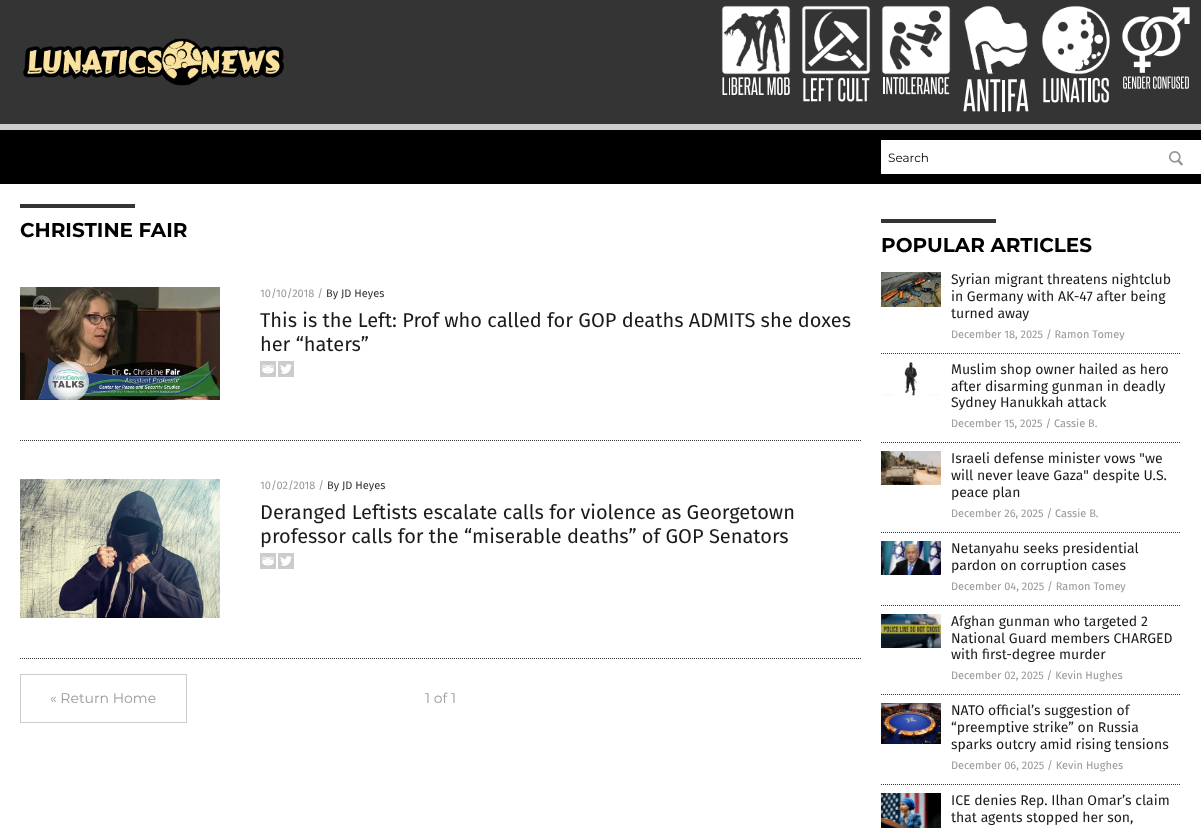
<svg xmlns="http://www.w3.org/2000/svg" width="1201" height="828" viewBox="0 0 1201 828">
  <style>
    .t1 { font: 12px Montserrat; fill: #000; }
    .t2 { font: bold 20px Montserrat; fill: #000; }
    .t3 { font: 11px Fira Sans; fill: #999; }
    .t4 { font: 11px Fira Sans; fill: #333; }
    .t5 { font: 20px Fira Sans; fill: #1a1a1a; }
    .t6 { font: 14px Montserrat; fill: #999; }
    .t7 { font: 14px Fira Sans; fill: #1a1a1a; }
  </style>
  <rect width="100%" height="100%" fill="#000"/>
  <rect x="0" y="0" width="1201" height="124" fill="#343434"/>
  <image x="23" y="38" width="261" height="48" href="images/1.png"/>
  <image x="721" y="5" width="70" height="70" href="images/2.png"/>
  <image x="722" y="77" width="68" height="19" href="images/3.png"/>
  <image x="801" y="5" width="70" height="70" href="images/4.png"/>
  <image x="803" y="77" width="67" height="25" href="images/5.png"/>
  <image x="881" y="5" width="70" height="70" href="images/6.png"/>
  <image x="883" y="77" width="67" height="18" href="images/7.png"/>
  <image x="964" y="5" width="64" height="70" href="images/8.png"/>
  <image x="963" y="79" width="66" height="33" href="images/9.png"/>
  <image x="1042" y="5" width="68" height="70" href="images/10.png"/>
  <image x="1043" y="77" width="66" height="26" href="images/11.png"/>
  <image x="1122" y="7" width="68" height="66" href="images/12.png"/>
  <image x="1123" y="76" width="66" height="13" href="images/13.png"/>
  <rect x="0" y="124" width="1201" height="6" fill="#ccc"/>
  <rect x="881" y="140" width="320" height="34" fill="#fff"/>
  <text x="888" y="162" class="t1">Search</text>
  <image x="1169" y="151" width="14" height="15" href="images/14.png"/>
  <rect x="0" y="184" width="1201" height="644" fill="#fff"/>
  <rect x="20" y="204" width="115" height="4" fill="#343434"/>
  <text x="20" y="237" class="t2">CHRISTINE FAIR</text>
  <path d="M20 440.5H861" fill="none" stroke="#343434" stroke-dasharray="1 1"/>
  <image x="20" y="287" width="200" height="113" href="images/15.png"/>
  <text x="260" y="297" class="t3">10/10/2018 /</text>
  <text x="326" y="297" class="t4">By JD Heyes</text>
  <text x="260" y="327" class="t5">This is the Left: Prof who called for GOP deaths ADMITS she doxes</text>
  <text x="260" y="351" class="t5">her “haters”</text>
  <image x="260" y="361" width="16" height="16" href="images/16.png"/>
  <image x="278" y="361" width="16" height="16" href="images/17.png"/>
  <path d="M20 658.5H861" fill="none" stroke="#343434" stroke-dasharray="1 1"/>
  <image x="20" y="479" width="200" height="139" href="images/18.png"/>
  <text x="260" y="489" class="t3">10/02/2018 /</text>
  <text x="327" y="489" class="t4">By JD Heyes</text>
  <text x="260" y="519" class="t5">Deranged Leftists escalate calls for violence as Georgetown</text>
  <text x="260" y="543" class="t5">professor calls for the “miserable deaths” of GOP Senators</text>
  <image x="260" y="553" width="16" height="16" href="images/16.png"/>
  <image x="278" y="553" width="16" height="16" href="images/17.png"/>
  <rect x="20.5" y="674.5" width="166" height="48" fill="none" stroke="#ccc"/>
  <text x="50" y="703" class="t6">« Return Home</text>
  <text x="425" y="703" class="t6">1 of 1</text>
  <rect x="881" y="219" width="115" height="4" fill="#343434"/>
  <text x="881" y="252" class="t2">POPULAR ARTICLES</text>
  <path d="M881 353.5H1181" fill="none" stroke="#343434" stroke-dasharray="1 1"/>
  <image x="881" y="272" width="60" height="35" href="images/19.png"/>
  <text x="951" y="284" class="t7">Syrian migrant threatens nightclub</text>
  <text x="951" y="301" class="t7">in Germany with AK-47 after being</text>
  <text x="951" y="318" class="t7">turned away</text>
  <text x="951" y="338" class="t3">December 18, 2025 / Ramon Tomey</text>
  <path d="M881 442.5H1181" fill="none" stroke="#343434" stroke-dasharray="1 1"/>
  <image x="883" y="362" width="57" height="34" href="images/20.png"/>
  <text x="951" y="374" class="t7">Muslim shop owner hailed as hero</text>
  <text x="951" y="391" class="t7">after disarming gunman in deadly</text>
  <text x="951" y="407" class="t7">Sydney Hanukkah attack</text>
  <text x="951" y="427" class="t3">December 15, 2025 / Cassie B.</text>
  <path d="M881 532.5H1181" fill="none" stroke="#343434" stroke-dasharray="1 1"/>
  <image x="881" y="451" width="60" height="34" href="images/21.png"/>
  <text x="951" y="463" class="t7">Israeli defense minister vows "we</text>
  <text x="951" y="480" class="t7">will never leave Gaza" despite U.S.</text>
  <text x="951" y="497" class="t7">peace plan</text>
  <text x="951" y="517" class="t3">December 26, 2025 / Cassie B.</text>
  <path d="M881 605.5H1181" fill="none" stroke="#343434" stroke-dasharray="1 1"/>
  <image x="881" y="541" width="60" height="34" href="images/22.png"/>
  <text x="951" y="553" class="t7">Netanyahu seeks presidential</text>
  <text x="951" y="570" class="t7">pardon on corruption cases</text>
  <text x="951" y="590" class="t3">December 04, 2025 / Ramon Tomey</text>
  <path d="M881 694.5H1181" fill="none" stroke="#343434" stroke-dasharray="1 1"/>
  <image x="881" y="614" width="60" height="34" href="images/23.png"/>
  <text x="951" y="626" class="t7">Afghan gunman who targeted 2</text>
  <text x="951" y="643" class="t7">National Guard members CHARGED</text>
  <text x="951" y="659" class="t7">with first-degree murder</text>
  <text x="951" y="679" class="t3">December 02, 2025 / Kevin Hughes</text>
  <path d="M881 784.5H1181" fill="none" stroke="#343434" stroke-dasharray="1 1"/>
  <image x="881" y="703" width="60" height="41" href="images/24.png"/>
  <text x="951" y="715" class="t7">NATO official’s suggestion of</text>
  <text x="951" y="732" class="t7">“preemptive strike” on Russia</text>
  <text x="951" y="749" class="t7">sparks outcry amid rising tensions</text>
  <text x="951" y="769" class="t3">December 06, 2025 / Kevin Hughes</text>
  <image x="881" y="793" width="60" height="35" href="images/25.png"/>
  <text x="951" y="805" class="t7">ICE denies Rep. Ilhan Omar’s claim</text>
  <text x="951" y="822" class="t7">that agents stopped her son,</text>
</svg>
